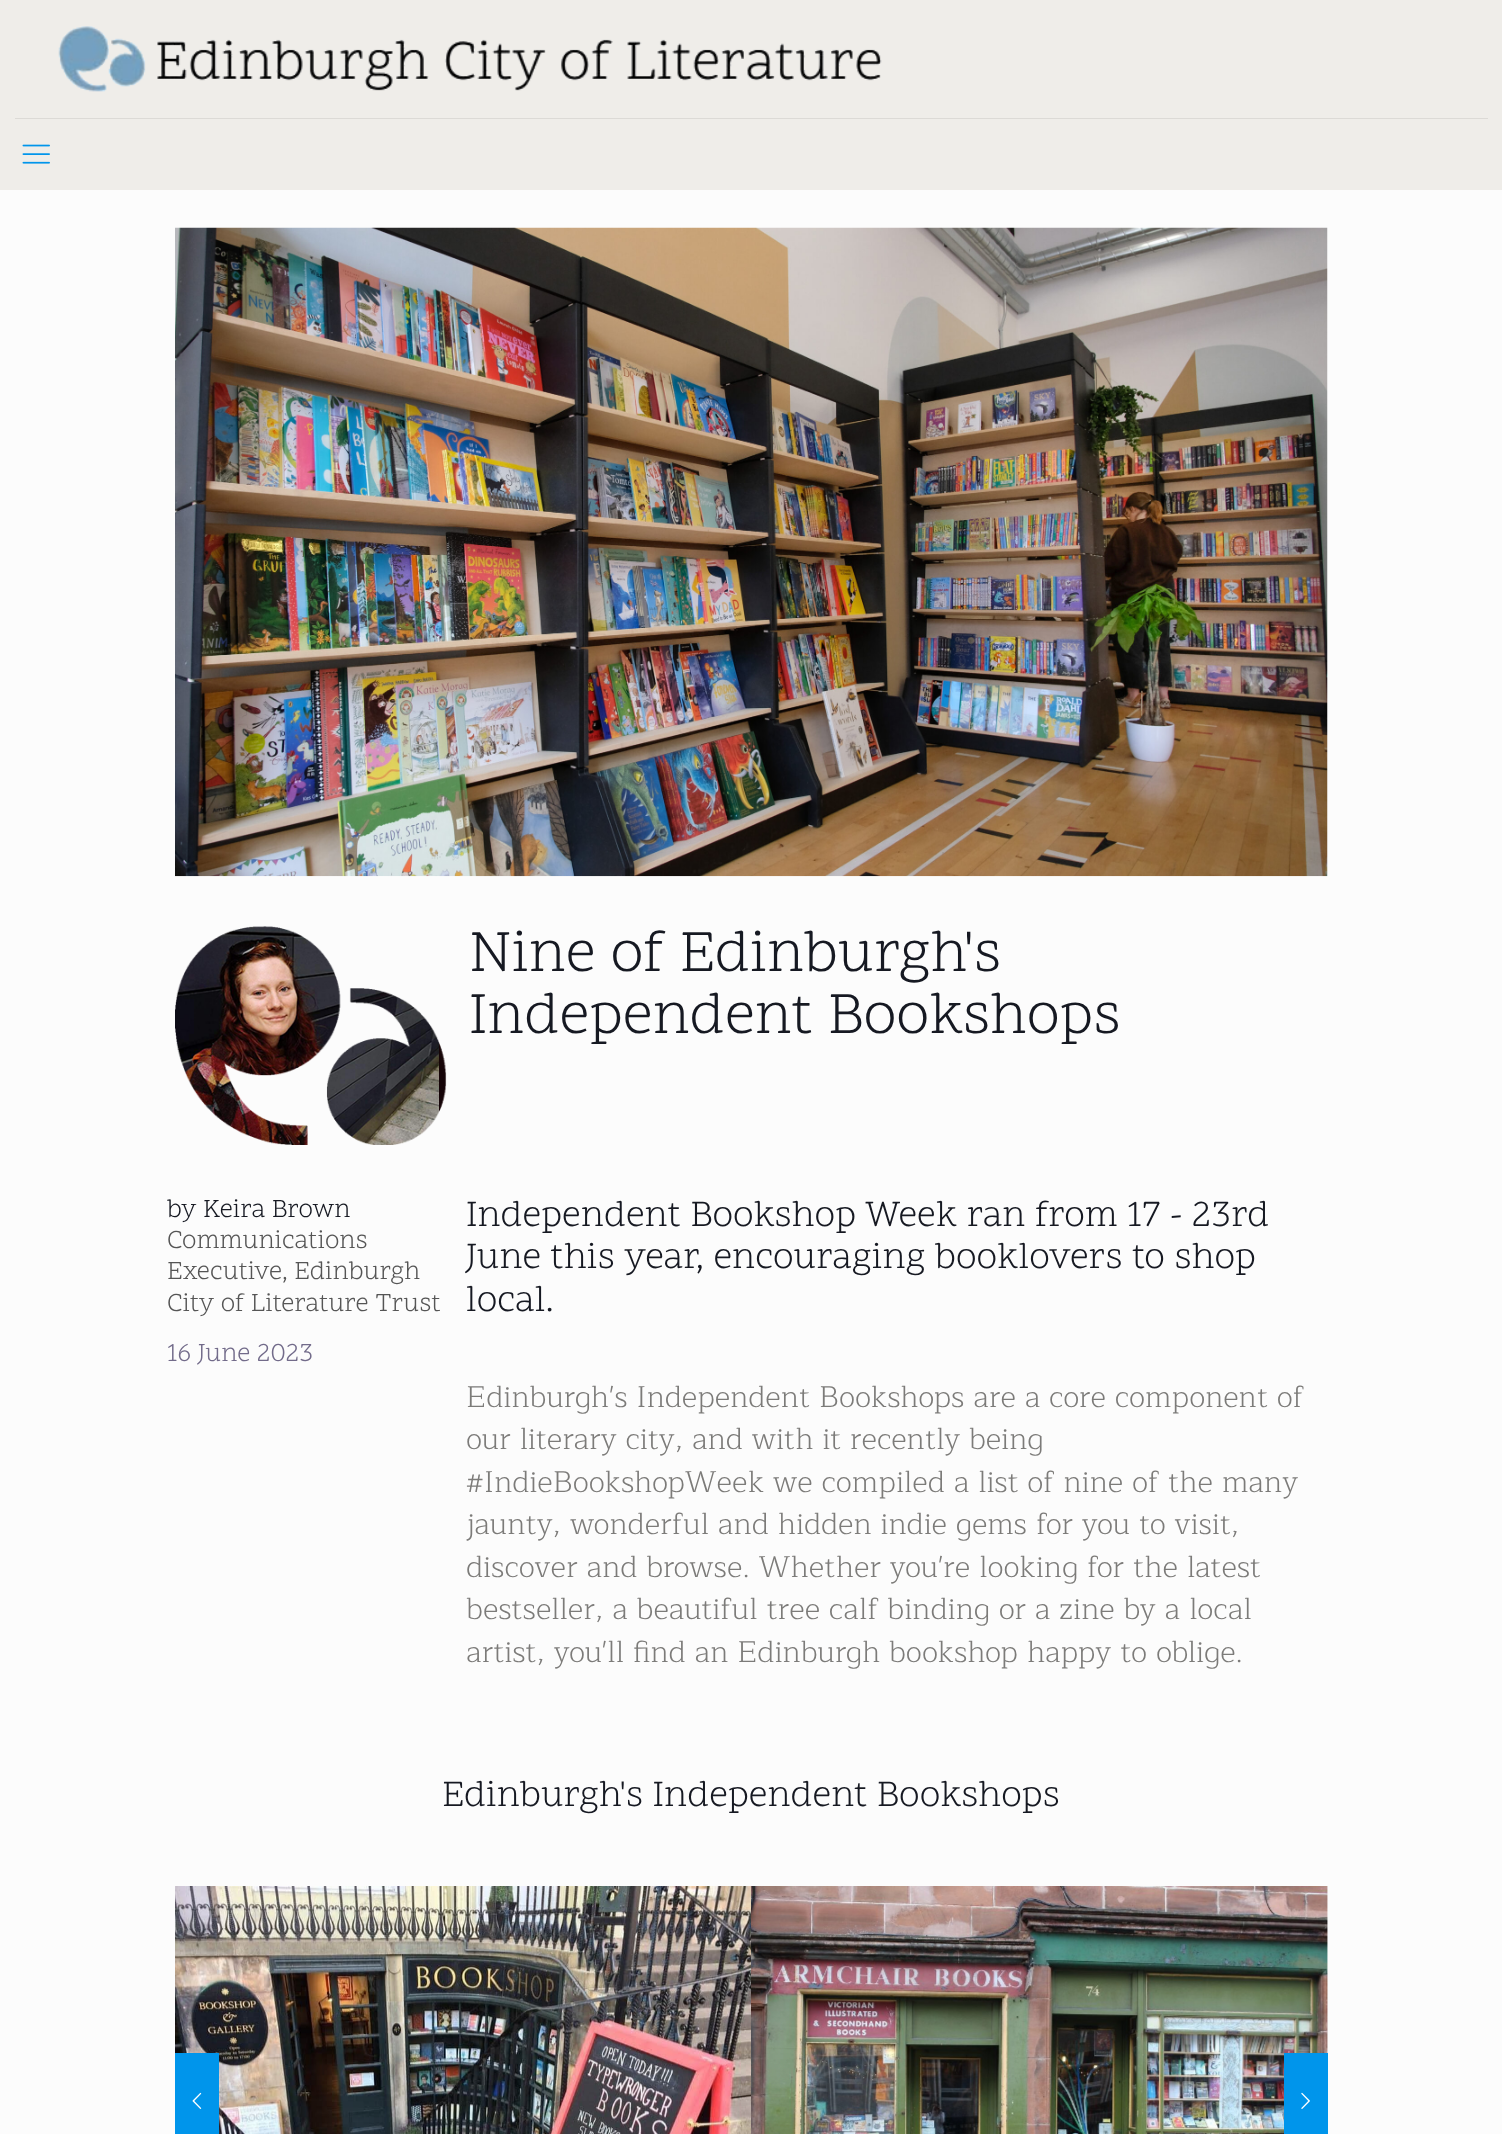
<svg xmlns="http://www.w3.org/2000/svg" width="1502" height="2134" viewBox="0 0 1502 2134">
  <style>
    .t1 { font: 60px Scope One; fill: #161922; }
    .t2 { font: 26.25px Scope One; fill: #161922; }
    .t3 { font: 26.25px Scope One; fill: #555; }
    .t4 { font: 26.25px Scope One; fill: #726b8a; }
    .t5 { font: 37.5px Scope One; fill: #161922; }
    .t6 { font: 300 30px Maitree; fill: #7c7b79; }
  </style>
  <rect width="100%" height="100%" fill="#fcfcfc"/>
  <rect x="0" y="0" width="1502" height="190" fill="#efede9"/>
  <rect x="15" y="118" width="1473" height="1" fill="#dcdad6"/>
  <image x="58" y="26" width="824" height="66" href="images/1.png"/>
  <image x="22" y="144" width="28" height="20" href="images/2.png"/>
  <image x="175" y="227" width="1153" height="650" href="images/3.png"/>
  <image x="175" y="926" width="272" height="219" href="images/4.png"/>
  <text x="469" y="971" class="t1">Nine of Edinburgh's</text>
  <text x="469" y="1033" class="t1">Independent Bookshops</text>
  <text x="167" y="1217" class="t2">by Keira Brown</text>
  <text x="167" y="1248" class="t3">Communications</text>
  <text x="167" y="1279" class="t3">Executive, Edinburgh</text>
  <text x="167" y="1311" class="t3">City of Literature Trust</text>
  <text x="167" y="1361" class="t4">16 June 2023</text>
  <text x="466" y="1226" class="t5">Independent Bookshop Week ran from 17 - 23rd</text>
  <text x="466" y="1268" class="t5">June this year, encouraging booklovers to shop</text>
  <text x="466" y="1311" class="t5">local.</text>
  <text x="466" y="1407" class="t6">Edinburgh's Independent Bookshops are a core component of</text>
  <text x="466" y="1449" class="t6">our literary city, and with it recently being</text>
  <text x="466" y="1492" class="t6">#IndieBookshopWeek we compiled a list of nine of the many</text>
  <text x="466" y="1534" class="t6">jaunty, wonderful and hidden indie gems for you to visit,</text>
  <text x="466" y="1577" class="t6">discover and browse. Whether you're looking for the latest</text>
  <text x="466" y="1619" class="t6">bestseller, a beautiful tree calf binding or a zine by a local</text>
  <text x="466" y="1662" class="t6">artist, you'll find an Edinburgh bookshop happy to oblige.</text>
  <text x="442" y="1806" class="t5">Edinburgh's Independent Bookshops</text>
  <image x="175" y="1886" width="576" height="248" href="images/5.png"/>
  <image x="751" y="1886" width="577" height="248" href="images/6.png"/>
  <rect x="175" y="2053" width="44" height="81" fill="#0095eb"/>
  <image x="192" y="2092" width="10" height="17" href="images/7.png"/>
  <rect x="1284" y="2053" width="44" height="81" fill="#0095eb"/>
  <image x="1301" y="2092" width="9" height="17" href="images/8.png"/>
</svg>
